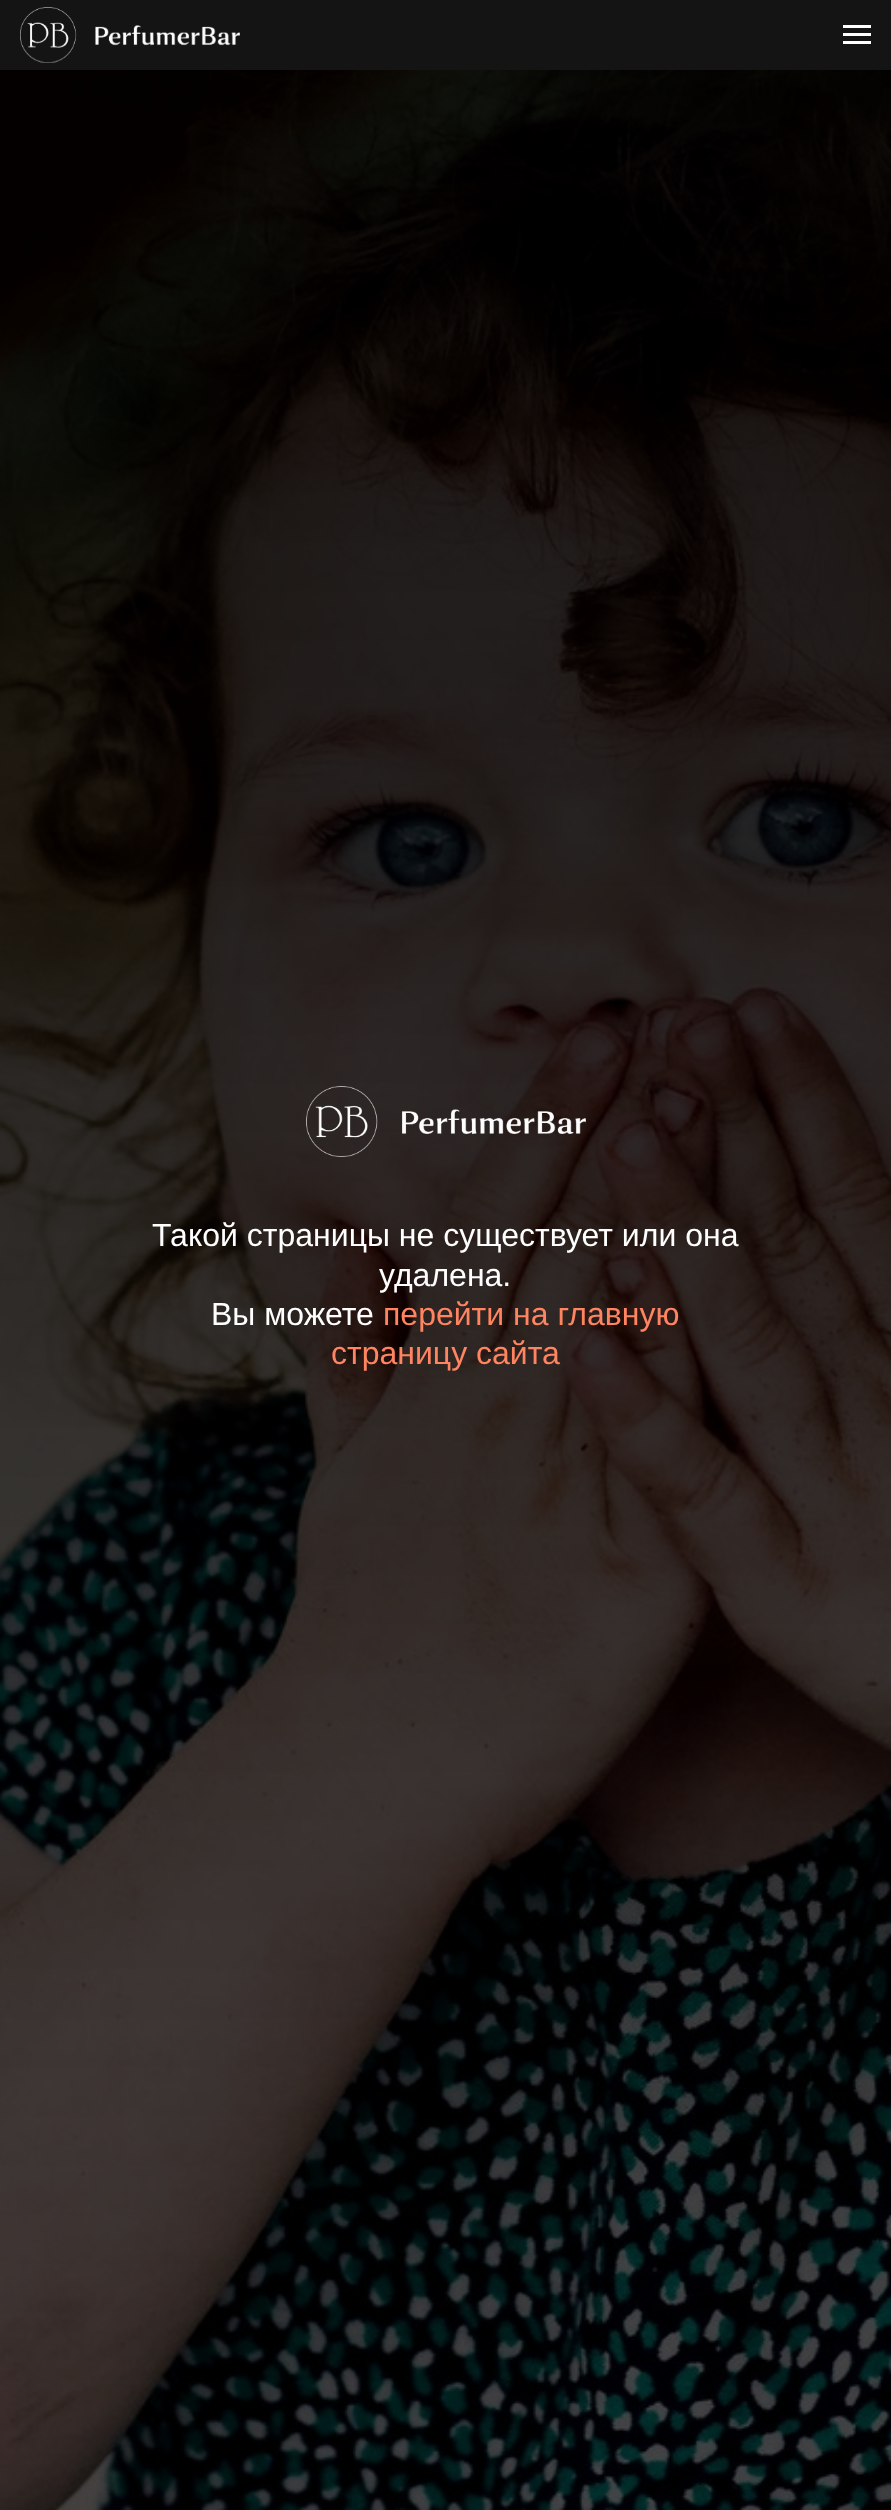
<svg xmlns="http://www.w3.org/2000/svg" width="891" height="2510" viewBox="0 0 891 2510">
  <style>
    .t1 { font: 32px Liberation Sans; fill: #fff; }
    .t2 { font: 32px Liberation Sans; fill: #ff8562; }
  </style>
  <rect width="100%" height="100%" fill="#fff"/>
  <rect x="0" y="0" width="891" height="70" fill="#141414"/>
  <image x="20" y="7" width="220" height="56" href="images/1.png"/>
  <rect x="843" y="25" width="28" height="3" fill="#fff"/>
  <rect x="843" y="33" width="28" height="3" fill="#fff"/>
  <rect x="843" y="41" width="28" height="3" fill="#fff"/>
  <image x="0" y="70" width="891" height="2440" href="images/2.png"/>
  <image x="306" y="1086" width="280" height="71" href="images/3.png"/>
  <text x="152" y="1246" class="t1">Такой страницы не существует или она</text>
  <text x="379" y="1286" class="t1">удалена.</text>
  <text x="211" y="1325" class="t1">Вы можете</text>
  <text x="383" y="1325" class="t2">перейти на главную</text>
  <text x="331" y="1364" class="t2">страницу сайта</text>
</svg>
